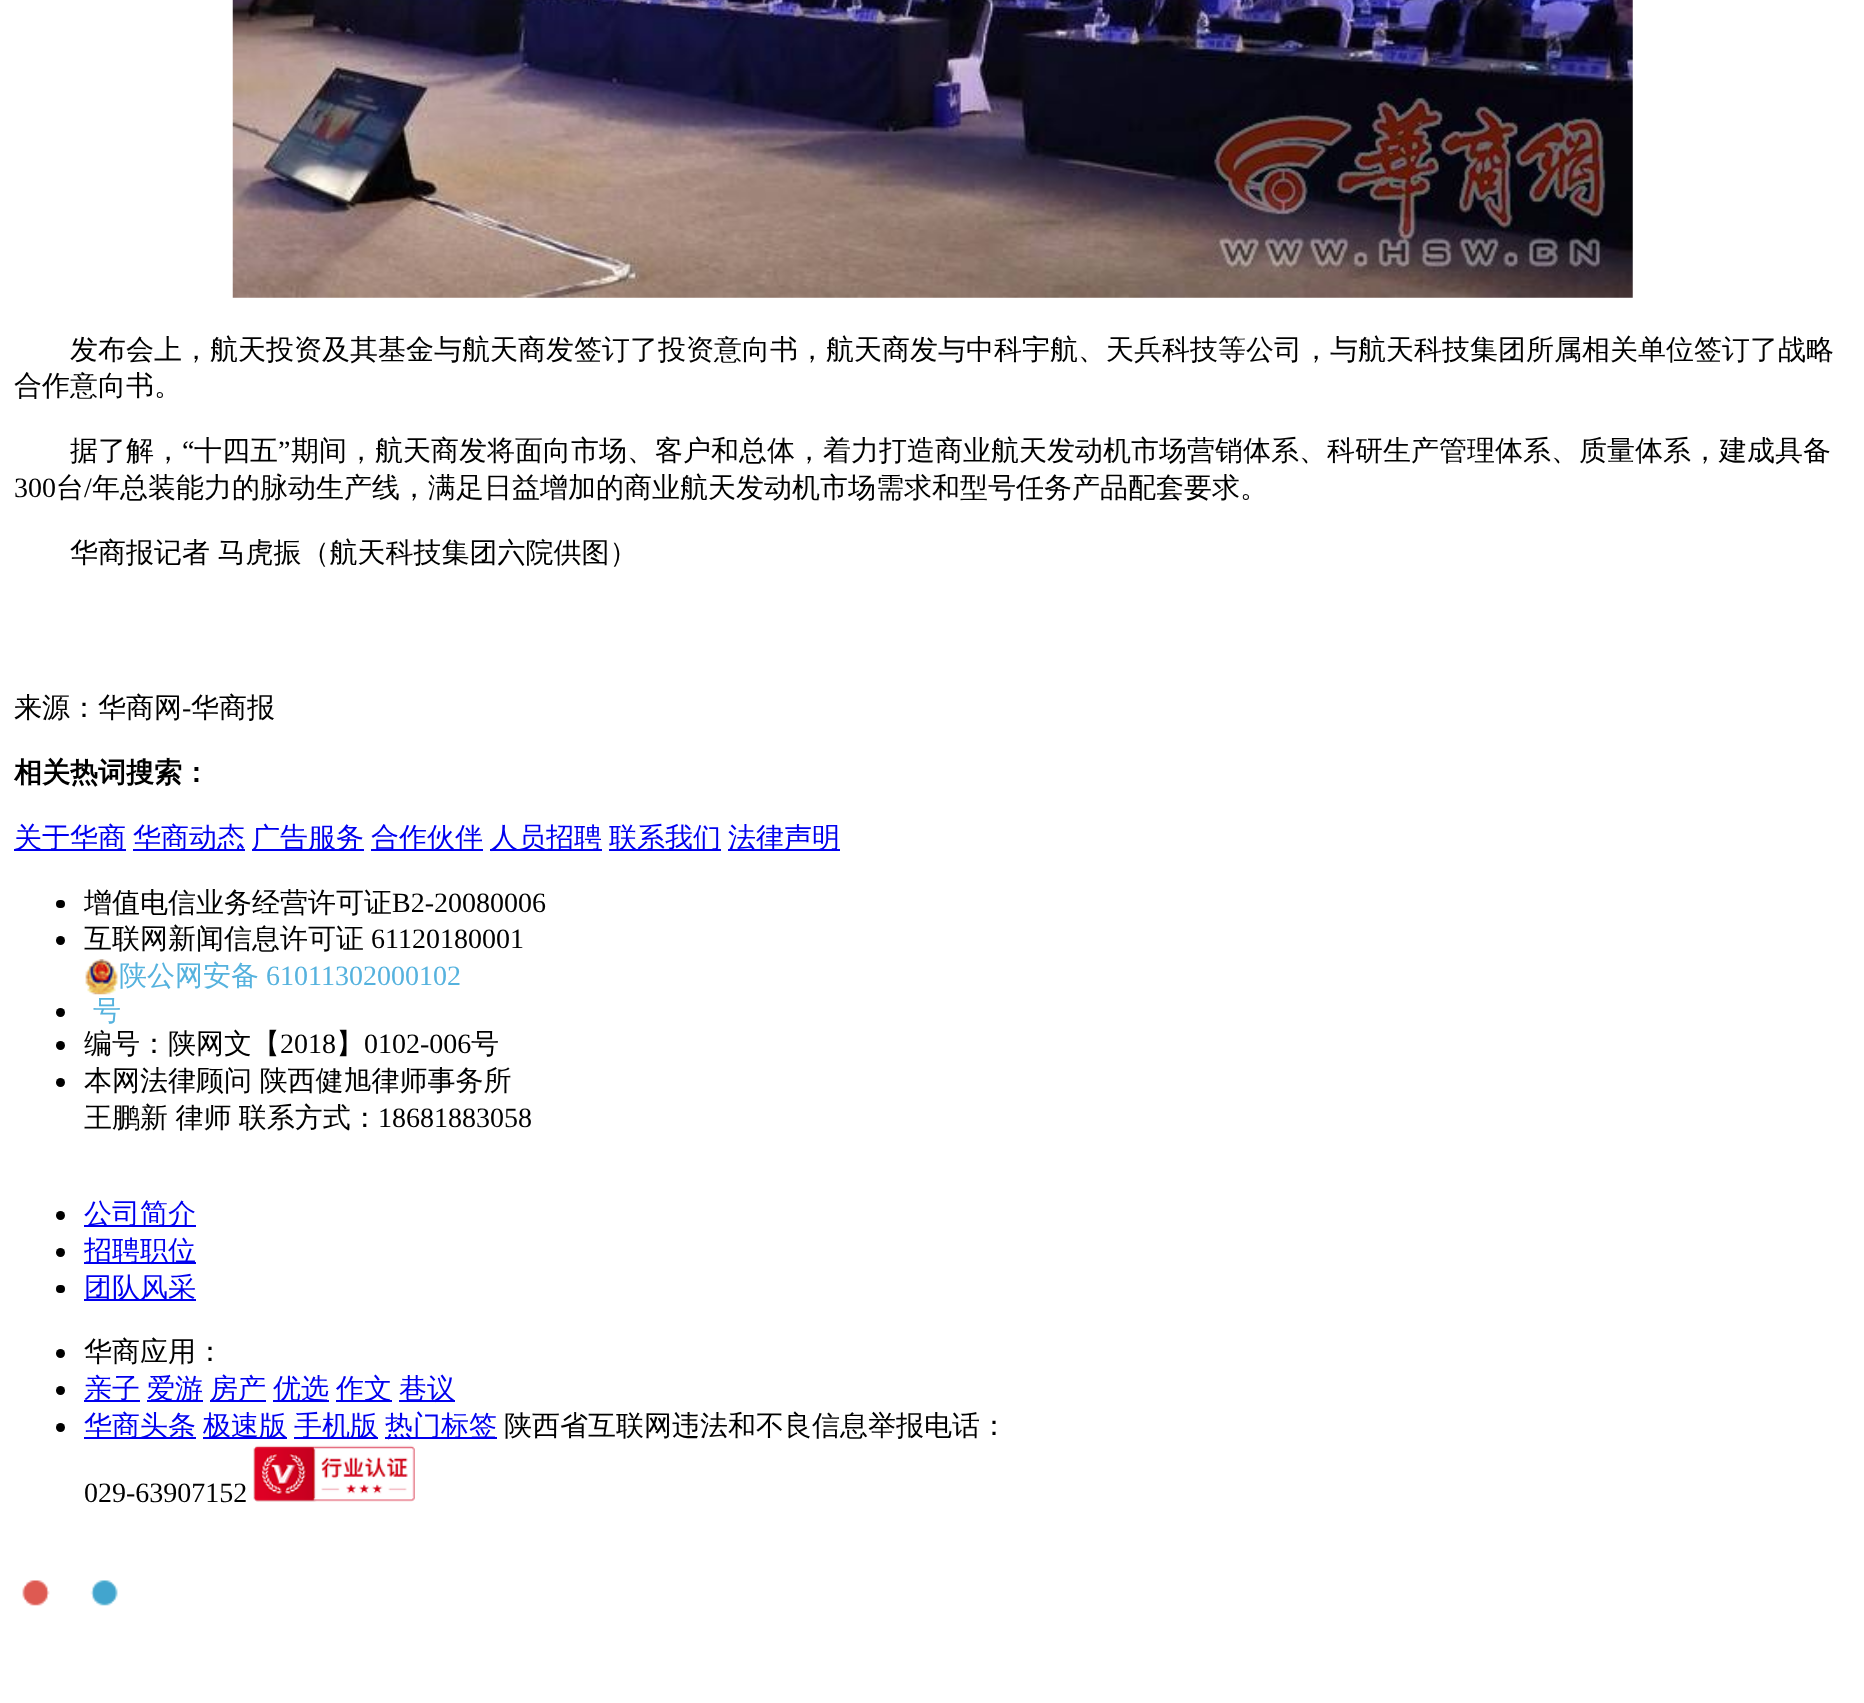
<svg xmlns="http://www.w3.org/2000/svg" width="1864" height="1703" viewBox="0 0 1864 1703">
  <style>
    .t1 { font: 500 28px WenQuanYi Zen Hei; fill: #000; }
    .t2 { font: 28px Liberation Serif; fill: #000; }
    .t3 { font: bold 28px WenQuanYi Zen Hei; fill: #000; }
    .t4 { font: 500 28px WenQuanYi Zen Hei; fill: #00e; }
    .t5 { font: 500 28px WenQuanYi Zen Hei; fill: #55b2de; }
    .t6 { font: 28px Liberation Serif; fill: #55b2de; }
  </style>
  <rect width="100%" height="100%" fill="#fff"/>
  <image x="232" y="0" width="1401" height="298" href="images/1.png"/>
  <text x="70" y="359" class="t1">发布会上，航天投资及其基金与航天商发签订了投资意向书，航天商发与中科宇航、天兵科技等公司，与航天科技集团所属相关单位签订了战略</text>
  <text x="14" y="395" class="t1">合作意向书。</text>
  <text x="70" y="460" class="t1">据了解，</text>
  <text x="182" y="460" class="t2">“</text>
  <text x="194" y="460" class="t1">十四五</text>
  <text x="278" y="460" class="t2">”</text>
  <text x="291" y="460" class="t1">期间，航天商发将面向市场、客户和总体，着力打造商业航天发动机市场营销体系、科研生产管理体系、质量体系，建成具备</text>
  <text x="14" y="497" class="t2">300</text>
  <text x="56" y="497" class="t1">台</text>
  <text x="84" y="497" class="t2">/</text>
  <text x="92" y="497" class="t1">年总装能力的脉动生产线，满足日益增加的商业航天发动机市场需求和型号任务产品配套要求。</text>
  <text x="70" y="562" word-spacing="-1" class="t1">华商报记者 马虎振（航天科技集团六院供图）</text>
  <text x="14" y="717" class="t1">来源：华商网</text>
  <text x="182" y="717" class="t2">-</text>
  <text x="191" y="717" class="t1">华商报</text>
  <text x="14" y="782" class="t3">相关热词搜索：</text>
  <rect x="14" y="849" width="112" height="2" fill="#00e"/>
  <text x="14" y="847" class="t4">关于华商</text>
  <rect x="133" y="849" width="112" height="2" fill="#00e"/>
  <text x="133" y="847" class="t4">华商动态</text>
  <rect x="252" y="849" width="112" height="2" fill="#00e"/>
  <text x="252" y="847" class="t4">广告服务</text>
  <rect x="371" y="849" width="112" height="2" fill="#00e"/>
  <text x="371" y="847" class="t4">合作伙伴</text>
  <rect x="490" y="849" width="112" height="2" fill="#00e"/>
  <text x="490" y="847" class="t4">人员招聘</text>
  <rect x="609" y="849" width="112" height="2" fill="#00e"/>
  <text x="609" y="847" class="t4">联系我们</text>
  <rect x="728" y="849" width="112" height="2" fill="#00e"/>
  <text x="728" y="847" class="t4">法律声明</text>
  <rect x="56" y="900" width="9" height="8" rx="4" fill="#000"/>
  <text x="84" y="912" class="t1">增值电信业务经营许可证</text>
  <text x="392" y="912" class="t2">B2-20080006</text>
  <circle cx="60.5" cy="940.5" r="4.5" fill="#000"/>
  <text x="84" y="948" class="t1">互联网新闻信息许可证</text>
  <text x="371" y="948" class="t2">61120180001</text>
  <circle cx="60.5" cy="1012.5" r="4.5" fill="#000"/>
  <image x="85" y="959" width="33" height="36" href="images/2.png"/>
  <text x="119" y="985" class="t5">陕公网安备</text>
  <text x="266" y="985" class="t6">61011302000102</text>
  <text x="93" y="1020" class="t5">号</text>
  <circle cx="60.5" cy="1045.5" r="4.5" fill="#000"/>
  <text x="84" y="1053" class="t1">编号：陕网文【</text>
  <text x="280" y="1053" class="t2">2018</text>
  <text x="336" y="1053" class="t1">】</text>
  <text x="364" y="1053" class="t2">0102-006</text>
  <text x="471" y="1053" class="t1">号</text>
  <circle cx="60.5" cy="1082.5" r="4.5" fill="#000"/>
  <text x="84" y="1090" word-spacing="-1" class="t1">本网法律顾问 陕西健旭律师事务所</text>
  <text x="84" y="1127" word-spacing="-1" class="t1">王鹏新 律师 联系方式：</text>
  <text x="378" y="1127" class="t2">18681883058</text>
  <circle cx="60.5" cy="1215.5" r="4.5" fill="#000"/>
  <rect x="84" y="1225" width="112" height="2" fill="#00e"/>
  <text x="84" y="1223" class="t4">公司简介</text>
  <circle cx="60.5" cy="1252.5" r="4.5" fill="#000"/>
  <rect x="84" y="1262" width="112" height="2" fill="#00e"/>
  <text x="84" y="1260" class="t4">招聘职位</text>
  <rect x="56" y="1285" width="9" height="8" rx="4" fill="#000"/>
  <rect x="84" y="1299" width="112" height="2" fill="#00e"/>
  <text x="84" y="1297" class="t4">团队风采</text>
  <circle cx="60.5" cy="1353.5" r="4.5" fill="#000"/>
  <text x="84" y="1361" class="t1">华商应用：</text>
  <circle cx="60.5" cy="1390.5" r="4.5" fill="#000"/>
  <rect x="84" y="1400" width="56" height="2" fill="#00e"/>
  <text x="84" y="1398" class="t4">亲子</text>
  <rect x="147" y="1400" width="56" height="2" fill="#00e"/>
  <text x="147" y="1398" class="t4">爱游</text>
  <rect x="210" y="1400" width="56" height="2" fill="#00e"/>
  <text x="210" y="1398" class="t4">房产</text>
  <rect x="273" y="1400" width="56" height="2" fill="#00e"/>
  <text x="273" y="1398" class="t4">优选</text>
  <rect x="336" y="1400" width="56" height="2" fill="#00e"/>
  <text x="336" y="1398" class="t4">作文</text>
  <rect x="399" y="1400" width="56" height="2" fill="#00e"/>
  <text x="399" y="1398" class="t4">巷议</text>
  <circle cx="60.5" cy="1427.5" r="4.5" fill="#000"/>
  <rect x="84" y="1437" width="112" height="2" fill="#00e"/>
  <text x="84" y="1435" class="t4">华商头条</text>
  <rect x="203" y="1437" width="84" height="2" fill="#00e"/>
  <text x="203" y="1435" class="t4">极速版</text>
  <rect x="294" y="1437" width="84" height="2" fill="#00e"/>
  <text x="294" y="1435" class="t4">手机版</text>
  <rect x="385" y="1437" width="112" height="2" fill="#00e"/>
  <text x="385" y="1435" class="t4">热门标签</text>
  <text x="504" y="1435" class="t1">陕西省互联网违法和不良信息举报电话：</text>
  <text x="84" y="1502" class="t2">029-63907152</text>
  <image x="253" y="1445" width="162" height="57" href="images/3.png"/>
  <image x="22" y="1580" width="96" height="26" href="images/4.png"/>
</svg>
